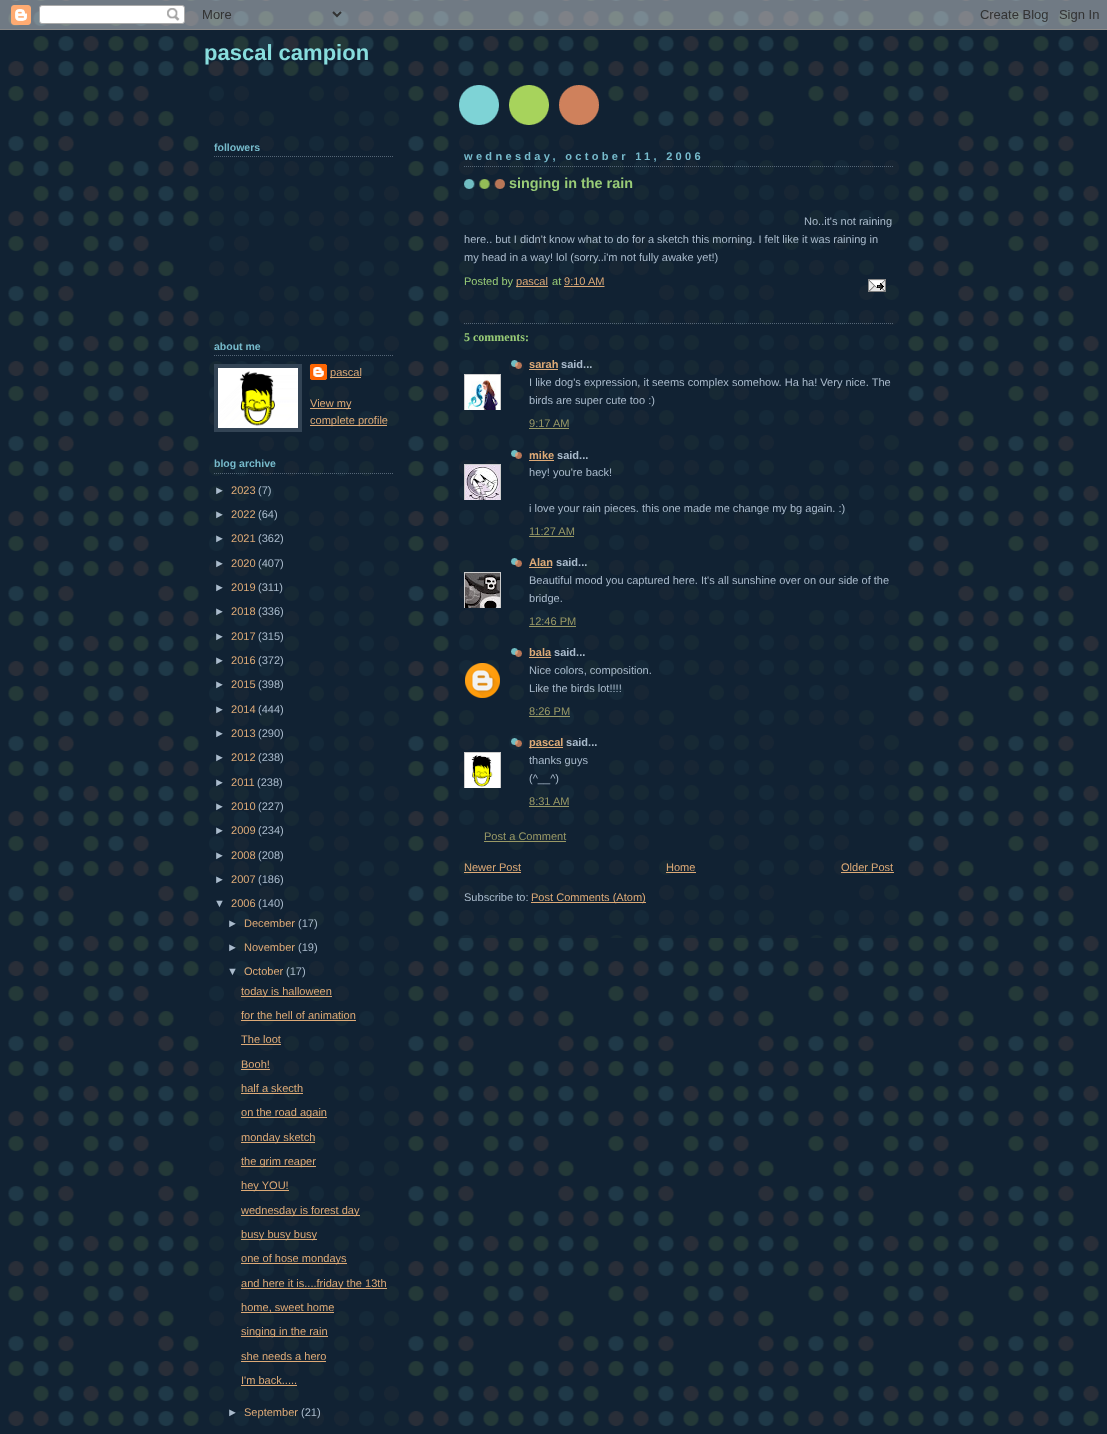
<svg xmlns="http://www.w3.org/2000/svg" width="1107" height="1434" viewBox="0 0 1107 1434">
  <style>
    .t1 { font: bold 22px Liberation Sans; fill: #8dd; }
    .t2 { font: bold 10.5px Liberation Sans; fill: #7bc; }
    .t3 { font: 11.05px Liberation Sans; fill: #da7; }
    .t4 { font: 11.05px Liberation Sans; fill: #abc; }
    .t5 { font: bold 11.05px Liberation Sans; letter-spacing: 3.3px; fill: #7bc; }
    .t6 { font: bold 14.4px Liberation Sans; fill: #9c7; }
    .t7 { font: 11.05px Liberation Sans; fill: #9c7; }
    .t8 { font: bold 12px Liberation Serif; fill: #9c7; }
    .t9 { font: bold 11.05px Liberation Sans; fill: #da7; }
    .t10 { font: bold 11.05px Liberation Sans; fill: #abc; }
    .t11 { font: 11.05px Liberation Sans; fill: #996; }
  </style>
  <defs>
    <clipPath id="clip1"><rect x="464" y="374" width="37" height="36"/></clipPath>
    <clipPath id="clip2"><rect x="464" y="464" width="37" height="36"/></clipPath>
    <clipPath id="clip3"><rect x="464" y="572" width="37" height="36"/></clipPath>
    <clipPath id="clip4"><rect x="464" y="752" width="37" height="36"/></clipPath>
  </defs>
  <rect width="100%" height="100%" fill="#123"/>
  <image x="8" y="0" width="1091" height="1426" href="images/1.png"/>
  <image x="0" y="0" width="1107" height="30" href="images/2.png"/>
  <image x="458" y="85" width="141" height="41" href="images/3.png"/>
  <text x="204" y="60" class="t1">pascal campion</text>
  <image x="208" y="86" width="191" height="1340" href="images/4.png"/>
  <path d="M214 156.5H394" fill="none" stroke="#567" stroke-dasharray="1 1"/>
  <text x="214" y="151" class="t2">followers</text>
  <path d="M214 355.5H394" fill="none" stroke="#567" stroke-dasharray="1 1"/>
  <text x="214" y="350" class="t2">about me</text>
  <rect x="216" y="366" width="84" height="64" fill="none" stroke="#345" stroke-width="4"/>
  <image x="218" y="368" width="80" height="60" href="images/5.png"/>
  <image x="310" y="364" width="17" height="16" href="images/6.png"/>
  <rect x="330" y="377" width="31" height="1" fill="#da7"/>
  <text x="330" y="376" class="t3">pascal</text>
  <rect x="310" y="408" width="41" height="1" fill="#da7"/>
  <text x="310" y="407" class="t3">View my</text>
  <rect x="310" y="425" width="77" height="1" fill="#da7"/>
  <text x="310" y="424" class="t3">complete profile</text>
  <path d="M214 473.5H394" fill="none" stroke="#567" stroke-dasharray="1 1"/>
  <text x="214" y="467" class="t2">blog archive</text>
  <text x="214" y="494" class="t4">►</text>
  <text x="231" y="494" class="t3">2023</text>
  <text x="258" y="494" class="t4">(7)</text>
  <text x="214" y="518" class="t4">►</text>
  <text x="231" y="518" class="t3">2022</text>
  <text x="258" y="518" class="t4">(64)</text>
  <text x="214" y="542" class="t4">►</text>
  <text x="231" y="542" class="t3">2021</text>
  <text x="258" y="542" class="t4">(362)</text>
  <text x="214" y="567" class="t4">►</text>
  <text x="231" y="567" class="t3">2020</text>
  <text x="258" y="567" class="t4">(407)</text>
  <text x="214" y="591" class="t4">►</text>
  <text x="231" y="591" class="t3">2019</text>
  <text x="258" y="591" class="t4">(311)</text>
  <text x="214" y="615" class="t4">►</text>
  <text x="231" y="615" class="t3">2018</text>
  <text x="258" y="615" class="t4">(336)</text>
  <text x="214" y="640" class="t4">►</text>
  <text x="231" y="640" class="t3">2017</text>
  <text x="258" y="640" class="t4">(315)</text>
  <text x="214" y="664" class="t4">►</text>
  <text x="231" y="664" class="t3">2016</text>
  <text x="258" y="664" class="t4">(372)</text>
  <text x="214" y="688" class="t4">►</text>
  <text x="231" y="688" class="t3">2015</text>
  <text x="258" y="688" class="t4">(398)</text>
  <text x="214" y="713" class="t4">►</text>
  <text x="231" y="713" class="t3">2014</text>
  <text x="258" y="713" class="t4">(444)</text>
  <text x="214" y="737" class="t4">►</text>
  <text x="231" y="737" class="t3">2013</text>
  <text x="258" y="737" class="t4">(290)</text>
  <text x="214" y="761" class="t4">►</text>
  <text x="231" y="761" class="t3">2012</text>
  <text x="258" y="761" class="t4">(238)</text>
  <text x="214" y="786" class="t4">►</text>
  <text x="231" y="786" class="t3">2011</text>
  <text x="257" y="786" class="t4">(238)</text>
  <text x="214" y="810" class="t4">►</text>
  <text x="231" y="810" class="t3">2010</text>
  <text x="258" y="810" class="t4">(227)</text>
  <text x="214" y="834" class="t4">►</text>
  <text x="231" y="834" class="t3">2009</text>
  <text x="258" y="834" class="t4">(234)</text>
  <text x="214" y="859" class="t4">►</text>
  <text x="231" y="859" class="t3">2008</text>
  <text x="258" y="859" class="t4">(208)</text>
  <text x="214" y="883" class="t4">►</text>
  <text x="231" y="883" class="t3">2007</text>
  <text x="258" y="883" class="t4">(186)</text>
  <text x="214" y="907" class="t4">▼</text>
  <text x="231" y="907" class="t3">2006</text>
  <text x="258" y="907" class="t4">(140)</text>
  <text x="227" y="927" class="t4">►</text>
  <text x="244" y="927" class="t3">December</text>
  <text x="298" y="927" class="t4">(17)</text>
  <text x="227" y="951" class="t4">►</text>
  <text x="244" y="951" class="t3">November</text>
  <text x="298" y="951" class="t4">(19)</text>
  <text x="227" y="975" class="t4">▼</text>
  <text x="244" y="975" class="t3">October</text>
  <text x="286" y="975" class="t4">(17)</text>
  <rect x="241" y="996" width="91" height="1" fill="#da7"/>
  <text x="241" y="995" class="t3">today is halloween</text>
  <text x="241" y="1019" class="t3">for the hell of animation</text>
  <rect x="241" y="1020" width="115" height="1" fill="#da7"/>
  <text x="241" y="1043" class="t3">The loot</text>
  <rect x="241" y="1044" width="40" height="1" fill="#da7"/>
  <text x="241" y="1068" class="t3">Booh!</text>
  <rect x="241" y="1069" width="29" height="1" fill="#da7"/>
  <text x="241" y="1092" class="t3">half a skecth</text>
  <rect x="241" y="1093" width="62" height="1" fill="#da7"/>
  <rect x="241" y="1117" width="86" height="1" fill="#da7"/>
  <text x="241" y="1116" class="t3">on the road again</text>
  <rect x="241" y="1142" width="74" height="1" fill="#da7"/>
  <text x="241" y="1141" class="t3">monday sketch</text>
  <rect x="241" y="1166" width="75" height="1" fill="#da7"/>
  <text x="241" y="1165" class="t3">the grim reaper</text>
  <rect x="241" y="1190" width="48" height="1" fill="#da7"/>
  <text x="241" y="1189" class="t3">hey YOU!</text>
  <rect x="241" y="1215" width="119" height="1" fill="#da7"/>
  <text x="241" y="1214" class="t3">wednesday is forest day</text>
  <rect x="241" y="1239" width="76" height="1" fill="#da7"/>
  <text x="241" y="1238" class="t3">busy busy busy</text>
  <rect x="241" y="1263" width="106" height="1" fill="#da7"/>
  <text x="241" y="1262" class="t3">one of hose mondays</text>
  <rect x="241" y="1288" width="146" height="1" fill="#da7"/>
  <text x="241" y="1287" class="t3">and here it is....friday the 13th</text>
  <rect x="241" y="1312" width="93" height="1" fill="#da7"/>
  <text x="241" y="1311" class="t3">home, sweet home</text>
  <rect x="241" y="1336" width="87" height="1" fill="#da7"/>
  <text x="241" y="1335" class="t3">singing in the rain</text>
  <text x="241" y="1360" class="t3">she needs a hero</text>
  <rect x="241" y="1361" width="85" height="1" fill="#da7"/>
  <text x="241" y="1384" class="t3">I'm back.....</text>
  <rect x="241" y="1385" width="56" height="1" fill="#da7"/>
  <text x="227" y="1416" class="t4">►</text>
  <text x="244" y="1416" class="t3">September</text>
  <text x="301" y="1416" class="t4">(21)</text>
  <image x="458" y="135" width="441" height="803" href="images/7.png"/>
  <path d="M464 166.5H894" fill="none" stroke="#567" stroke-dasharray="1 1"/>
  <text x="464" y="160" class="t5">wednesday, october 11, 2006</text>
  <image x="464" y="179" width="41" height="10" href="images/8.png"/>
  <text x="509" y="188" class="t6">singing in the rain</text>
  <text x="804" y="225" class="t4">No..it's not raining</text>
  <text x="464" y="243" class="t4">here.. but I didn't know what to do for a sketch this morning. I felt like it was raining in</text>
  <text x="464" y="261" class="t4">my head in a way! lol (sorry..i'm not fully awake yet!)</text>
  <text x="464" y="285" class="t7">Posted by</text>
  <rect x="516" y="286" width="32" height="1" fill="#da7"/>
  <text x="516" y="285" class="t3">pascal</text>
  <text x="552" y="285" class="t7">at</text>
  <text x="564" y="285" class="t3">9:10 AM</text>
  <path d="M564 286.5H604.5" fill="none" stroke="#da7" stroke-dasharray="1 1"/>
  <rect x="564" y="286" width="40" height="1" fill="#da7"/>
  <image x="868" y="279" width="18" height="13" href="images/9.png"/>
  <path d="M464 323.5H894" fill="none" stroke="#567" stroke-dasharray="1 1"/>
  <text x="464" y="341" class="t8">5 comments:</text>
  <image x="511" y="360" width="11" height="9" href="images/10.png"/>
  <text x="529" y="368" class="t9">sarah</text>
  <rect x="529" y="369" width="29" height="1" fill="#da7"/>
  <text x="561" y="368" class="t10">said...</text>
  <g clip-path="url(#clip1)">
    <rect x="464.5" y="374.5" width="36" height="36" fill="none" stroke="#ccc"/>
  </g>
  <image x="465" y="375" width="35" height="35" href="images/11.png"/>
  <text x="529" y="386" class="t4">I like dog's expression, it seems complex somehow. Ha ha! Very nice. The</text>
  <text x="529" y="404" class="t4">birds are super cute too :)</text>
  <text x="529" y="427" class="t11">9:17 AM</text>
  <rect x="529" y="428" width="40" height="1" fill="#996"/>
  <image x="511" y="450" width="11" height="9" href="images/12.png"/>
  <text x="529" y="459" class="t9">mike</text>
  <rect x="529" y="460" width="25" height="1" fill="#da7"/>
  <text x="557" y="459" class="t10">said...</text>
  <g clip-path="url(#clip2)">
    <rect x="464.5" y="464.5" width="36" height="36" fill="none" stroke="#ccc"/>
  </g>
  <image x="465" y="465" width="35" height="35" href="images/13.png"/>
  <text x="529" y="476" class="t4">hey! you're back!</text>
  <text x="529" y="512" class="t4">i love your rain pieces. this one made me change my bg again. :)</text>
  <text x="529" y="535" class="t11">11:27 AM</text>
  <rect x="529" y="536" width="45" height="1" fill="#996"/>
  <image x="511" y="558" width="11" height="9" href="images/12.png"/>
  <text x="529" y="566" class="t9">Alan</text>
  <rect x="529" y="567" width="23" height="1" fill="#da7"/>
  <text x="556" y="566" class="t10">said...</text>
  <g clip-path="url(#clip3)">
    <rect x="464.5" y="572.5" width="36" height="36" fill="none" stroke="#ccc"/>
  </g>
  <image x="465" y="573" width="35" height="35" href="images/14.png"/>
  <text x="529" y="584" class="t4">Beautiful mood you captured here. It's all sunshine over on our side of the</text>
  <text x="529" y="602" class="t4">bridge.</text>
  <text x="529" y="625" class="t11">12:46 PM</text>
  <rect x="529" y="626" width="47" height="1" fill="#996"/>
  <image x="511" y="648" width="11" height="9" href="images/12.png"/>
  <text x="529" y="656" class="t9">bala</text>
  <rect x="529" y="657" width="22" height="1" fill="#da7"/>
  <text x="554" y="656" class="t10">said...</text>
  <image x="465" y="663" width="35" height="35" href="images/15.png"/>
  <text x="529" y="674" class="t4">Nice colors, composition.</text>
  <text x="529" y="692" class="t4">Like the birds lot!!!!</text>
  <text x="529" y="715" class="t11">8:26 PM</text>
  <rect x="529" y="716" width="41" height="1" fill="#996"/>
  <image x="511" y="738" width="11" height="9" href="images/16.png"/>
  <rect x="529" y="747" width="34" height="1" fill="#da7"/>
  <text x="529" y="746" class="t9">pascal</text>
  <text x="566" y="746" class="t10">said...</text>
  <g clip-path="url(#clip4)">
    <rect x="464.5" y="752.5" width="36" height="36" fill="none" stroke="#ccc"/>
  </g>
  <image x="465" y="753" width="35" height="35" href="images/17.png"/>
  <text x="529" y="764" class="t4">thanks guys</text>
  <text x="529" y="782" class="t4">(^__^)</text>
  <text x="529" y="805" class="t11">8:31 AM</text>
  <rect x="529" y="806" width="40" height="1" fill="#996"/>
  <text x="484" y="840" class="t11">Post a Comment</text>
  <rect x="484" y="841" width="82" height="1" fill="#996"/>
  <text x="464" y="871" class="t3">Newer Post</text>
  <rect x="464" y="872" width="57" height="1" fill="#da7"/>
  <text x="666" y="871" class="t3">Home</text>
  <rect x="666" y="872" width="30" height="1" fill="#da7"/>
  <text x="841" y="871" class="t3">Older Post</text>
  <rect x="841" y="872" width="53" height="1" fill="#da7"/>
  <text x="464" y="901" class="t4">Subscribe to:</text>
  <rect x="531" y="902" width="115" height="1" fill="#da7"/>
  <text x="531" y="901" class="t3">Post Comments (Atom)</text>
</svg>
